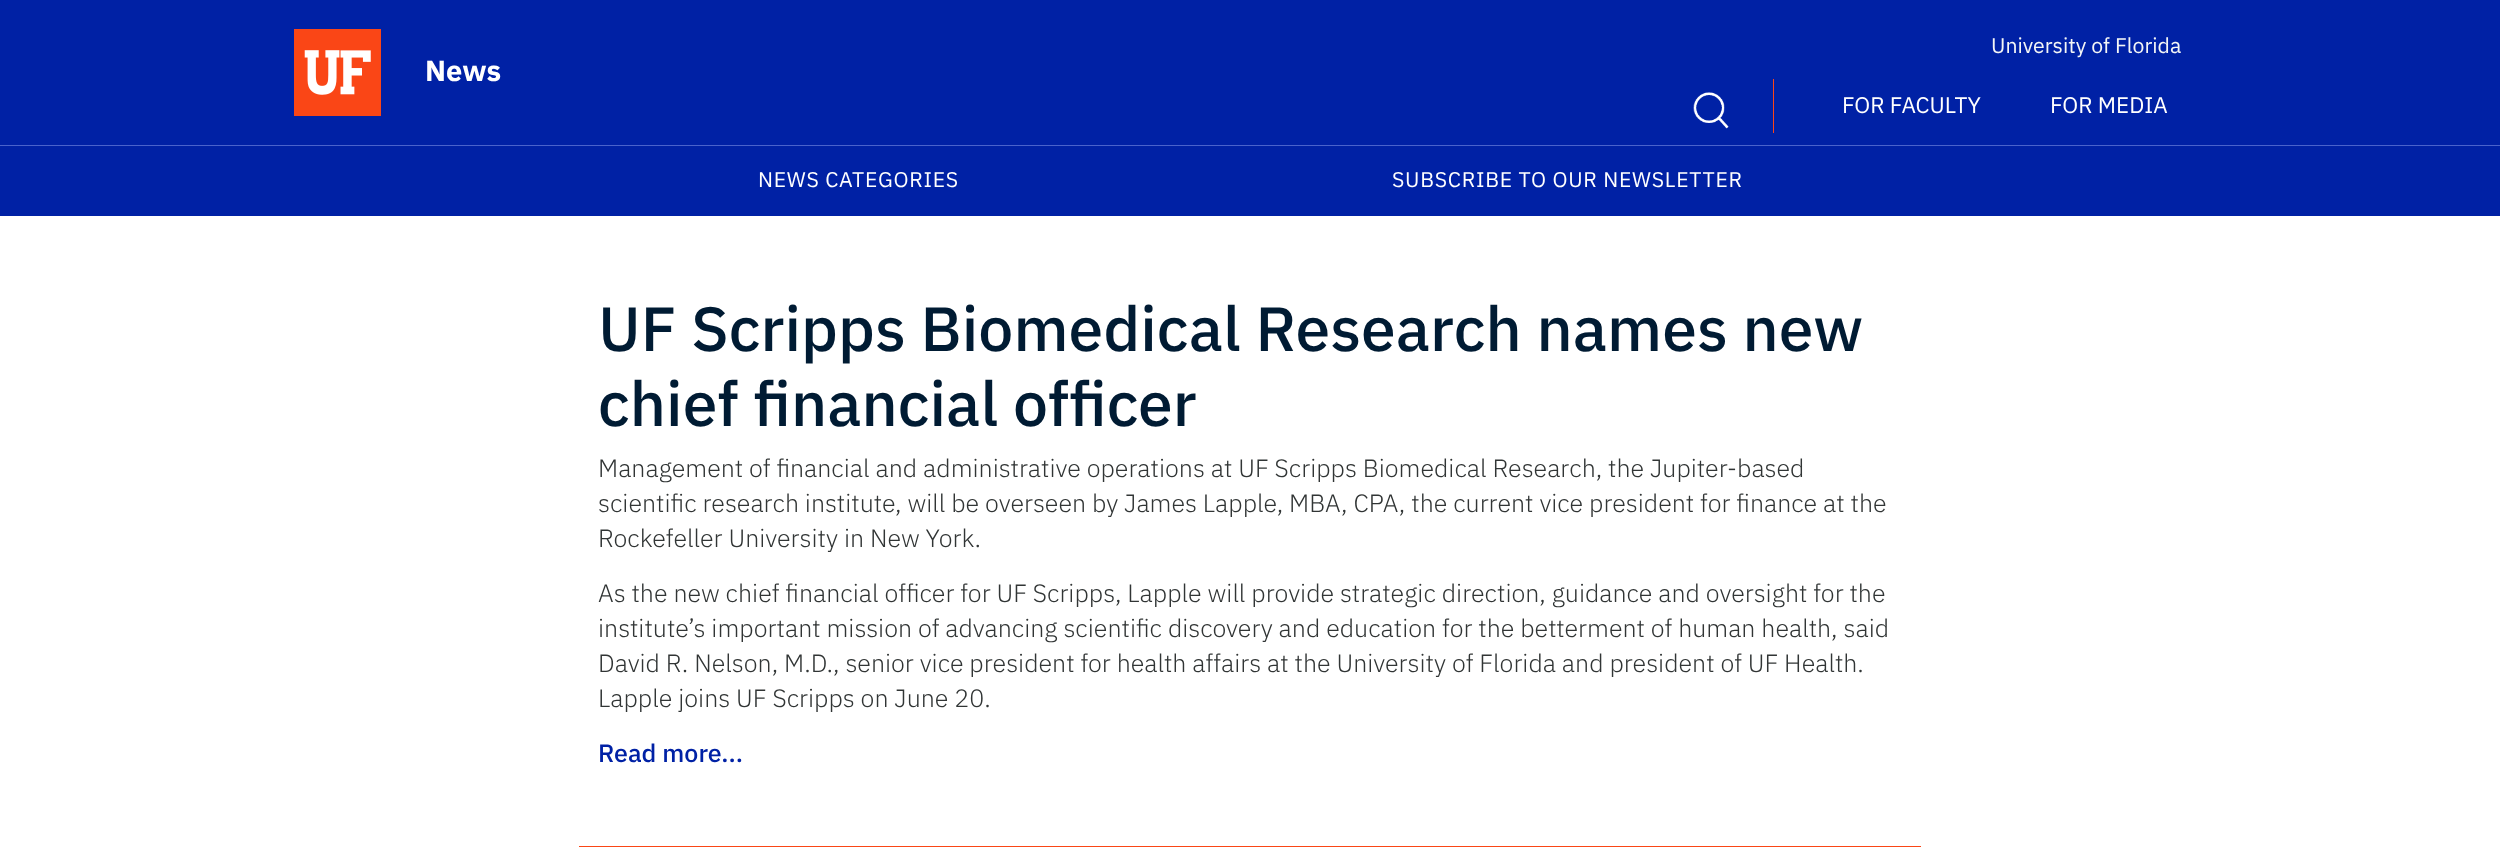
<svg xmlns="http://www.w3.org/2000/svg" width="2500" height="865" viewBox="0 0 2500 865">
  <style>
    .t1 { font: bold 29px IBM Plex Sans; fill: #fff; }
    .t2 { font: 21.25px IBM Plex Sans; fill: #f4f6f6; }
    .t3 { font: 22.5px IBM Plex Sans; fill: #fff; }
    .t4 { font: 21.25px IBM Plex Sans; letter-spacing: 0.7px; fill: #fff; }
    .t5 { font: 500 62.5px IBM Plex Sans; fill: #001b33; }
    .t6 { font: 300 25px IBM Plex Sans; fill: #313535; }
    .t7 { font: 500 25px IBM Plex Sans; fill: #0021a5; }
  </style>
  <rect width="100%" height="100%" fill="#fff"/>
  <rect x="0" y="0" width="2500" height="145" fill="#0021a5"/>
  <rect x="0" y="145" width="2500" height="1" fill="#4a63cb"/>
  <image x="294" y="29" width="87" height="87" href="images/1.png"/>
  <text x="425" y="81" class="t1">News</text>
  <text x="1991" y="53" class="t2">University of Florida</text>
  <rect x="1773" y="79" width="1" height="54" fill="#fa4616"/>
  <image x="1693" y="92" width="36" height="37" href="images/2.png"/>
  <text x="1842" y="113" class="t3">FOR FACULTY</text>
  <text x="2050" y="113" class="t3">FOR MEDIA</text>
  <rect x="0" y="146" width="2500" height="70" fill="#0021a5"/>
  <text x="758" y="187" class="t4">NEWS CATEGORIES</text>
  <text x="1392" y="187" class="t4">SUBSCRIBE TO OUR NEWSLETTER</text>
  <text x="598" y="351" class="t5">UF Scripps Biomedical Research names new</text>
  <text x="598" y="426" class="t5">chief financial officer</text>
  <text x="598" y="477" class="t6">Management of financial and administrative operations at UF Scripps Biomedical Research, the Jupiter-based</text>
  <text x="598" y="512" class="t6">scientific research institute, will be overseen by James Lapple, MBA, CPA, the current vice president for finance at the</text>
  <text x="598" y="547" class="t6">Rockefeller University in New York.</text>
  <text x="598" y="602" class="t6">As the new chief financial officer for UF Scripps, Lapple will provide strategic direction, guidance and oversight for the</text>
  <text x="598" y="637" class="t6">institute’s important mission of advancing scientific discovery and education for the betterment of human health, said</text>
  <text x="598" y="672" class="t6">David R. Nelson, M.D., senior vice president for health affairs at the University of Florida and president of UF Health.</text>
  <text x="598" y="707" class="t6">Lapple joins UF Scripps on June 20.</text>
  <text x="598" y="762" class="t7">Read more...</text>
  <rect x="579" y="846" width="1342" height="1" fill="#fa4616"/>
</svg>
